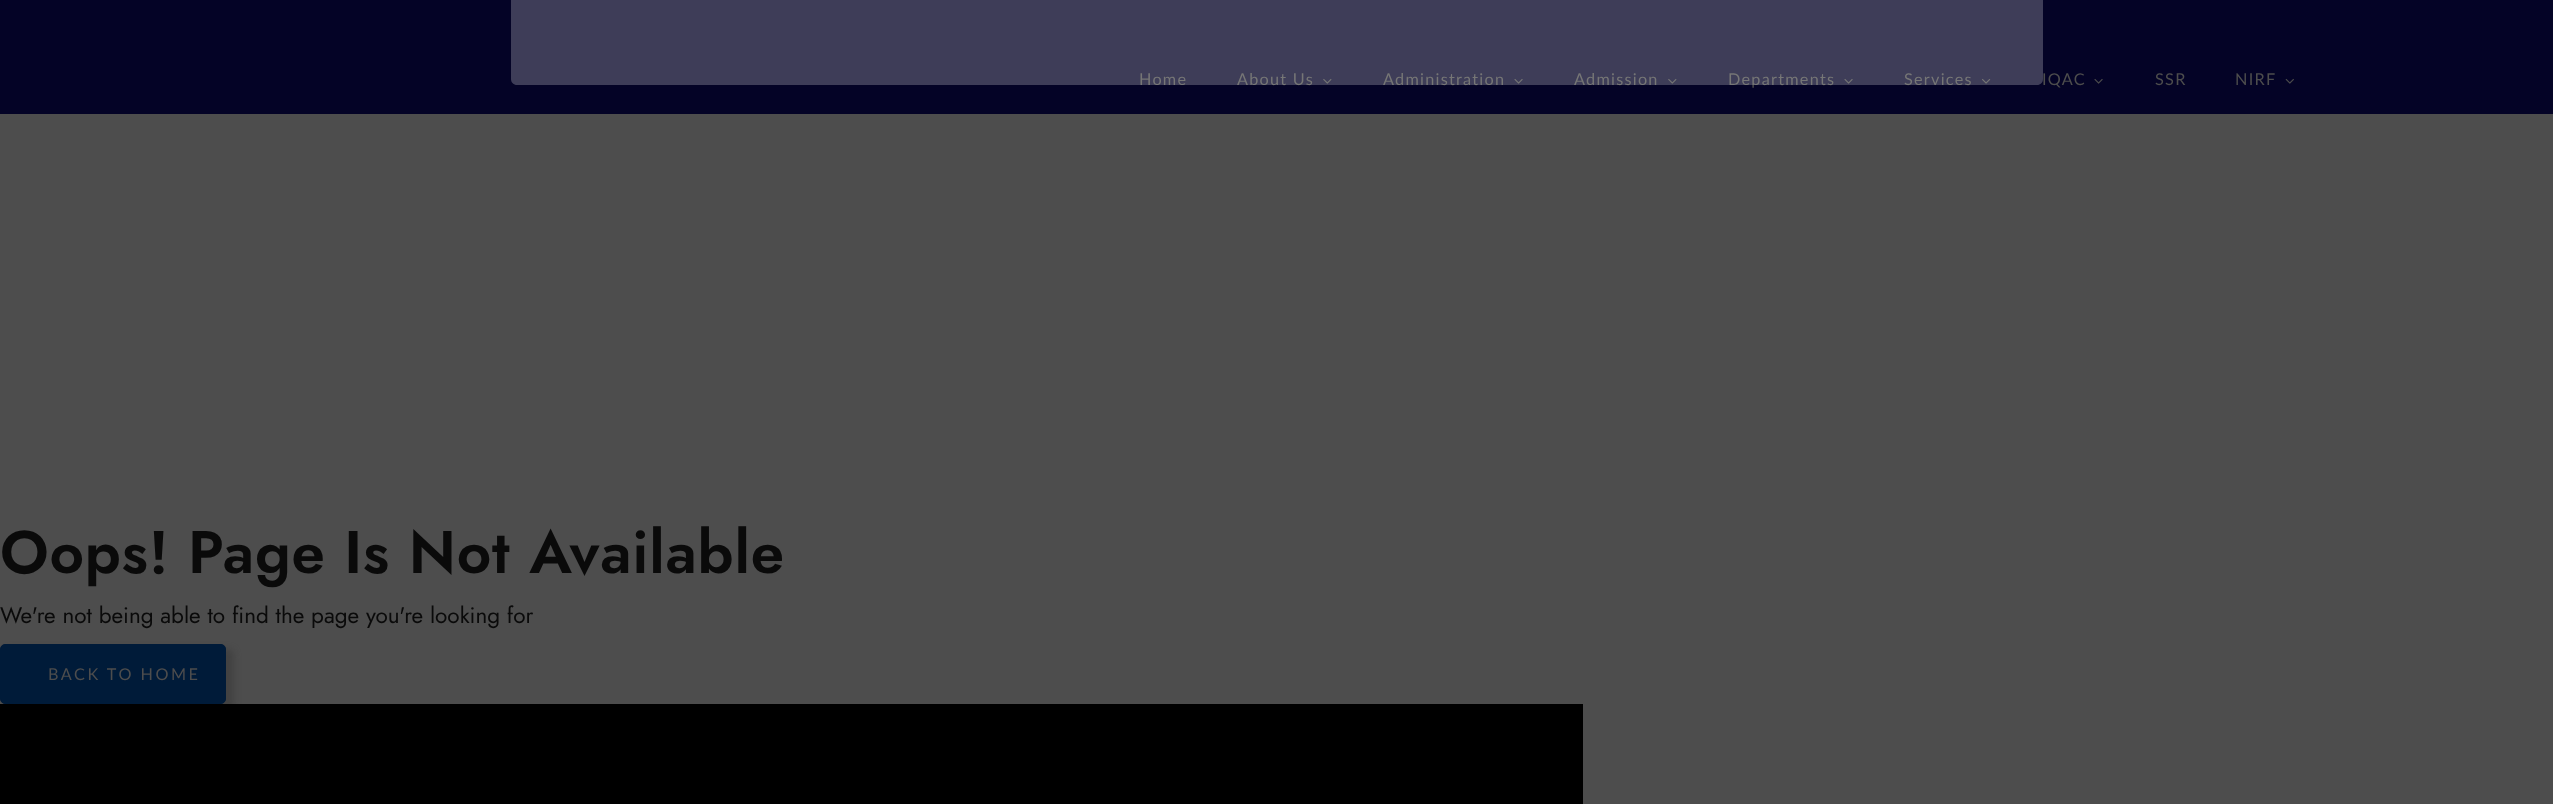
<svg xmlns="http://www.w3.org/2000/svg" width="2553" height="804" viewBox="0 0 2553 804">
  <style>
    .t1 { font: 16.25px Lato; letter-spacing: 1.25px; fill: #4d4d4d; }
    .t2 { font: 600 60px Jost; letter-spacing: 0.75px; fill: #0a0a0a; }
    .t3 { font: 22.5px Jost; fill: #0a0a0a; }
    .t4 { font: 16.25px Lato; letter-spacing: 2.5px; fill: #4d4d4d; }
  </style>
  <rect width="100%" height="100%" fill="#4d4d4d"/>
  <rect x="0" y="0" width="2553" height="114" fill="#040326"/>
  <text x="1139" y="85" class="t1">Home</text>
  <text x="1237" y="85" class="t1">About Us</text>
  <image x="1323" y="78" width="9" height="6" href="images/1.png"/>
  <text x="1383" y="85" class="t1">Administration</text>
  <image x="1514" y="78" width="9" height="6" href="images/2.png"/>
  <text x="1574" y="85" class="t1">Admission</text>
  <image x="1668" y="78" width="9" height="6" href="images/1.png"/>
  <text x="1728" y="85" class="t1">Departments</text>
  <image x="1844" y="78" width="9" height="6" href="images/2.png"/>
  <text x="1904" y="85" class="t1">Services</text>
  <image x="1981" y="78" width="10" height="6" href="images/3.png"/>
  <path d="M511 0H2043V79C2043 82.5 2040.5 85 2037 85H517C513.5 85 511 82.5 511 79Z" fill="#ffffff3b"/>
  <text x="2042" y="85" class="t1">IQAC</text>
  <image x="2094" y="78" width="9" height="6" href="images/2.png"/>
  <text x="2155" y="85" class="t1">SSR</text>
  <text x="2235" y="85" class="t1">NIRF</text>
  <image x="2285" y="78" width="9" height="6" href="images/4.png"/>
  <text x="0" y="573" class="t2">Oops! Page Is Not Available</text>
  <text x="0" y="623" class="t3">We're not being able to find the page you're looking for</text>
  <rect x="5" y="649" width="229" height="62" rx="6" fill="#424242" filter="blur(3px)"/>
  <rect x="0.5" y="644.5" width="225" height="59" rx="4.5" fill="#001b39" stroke="#001b39"/>
  <text x="48" y="680" class="t4">BACK TO HOME</text>
  <rect x="0" y="704" width="1583" height="100" fill="#000"/>
</svg>
